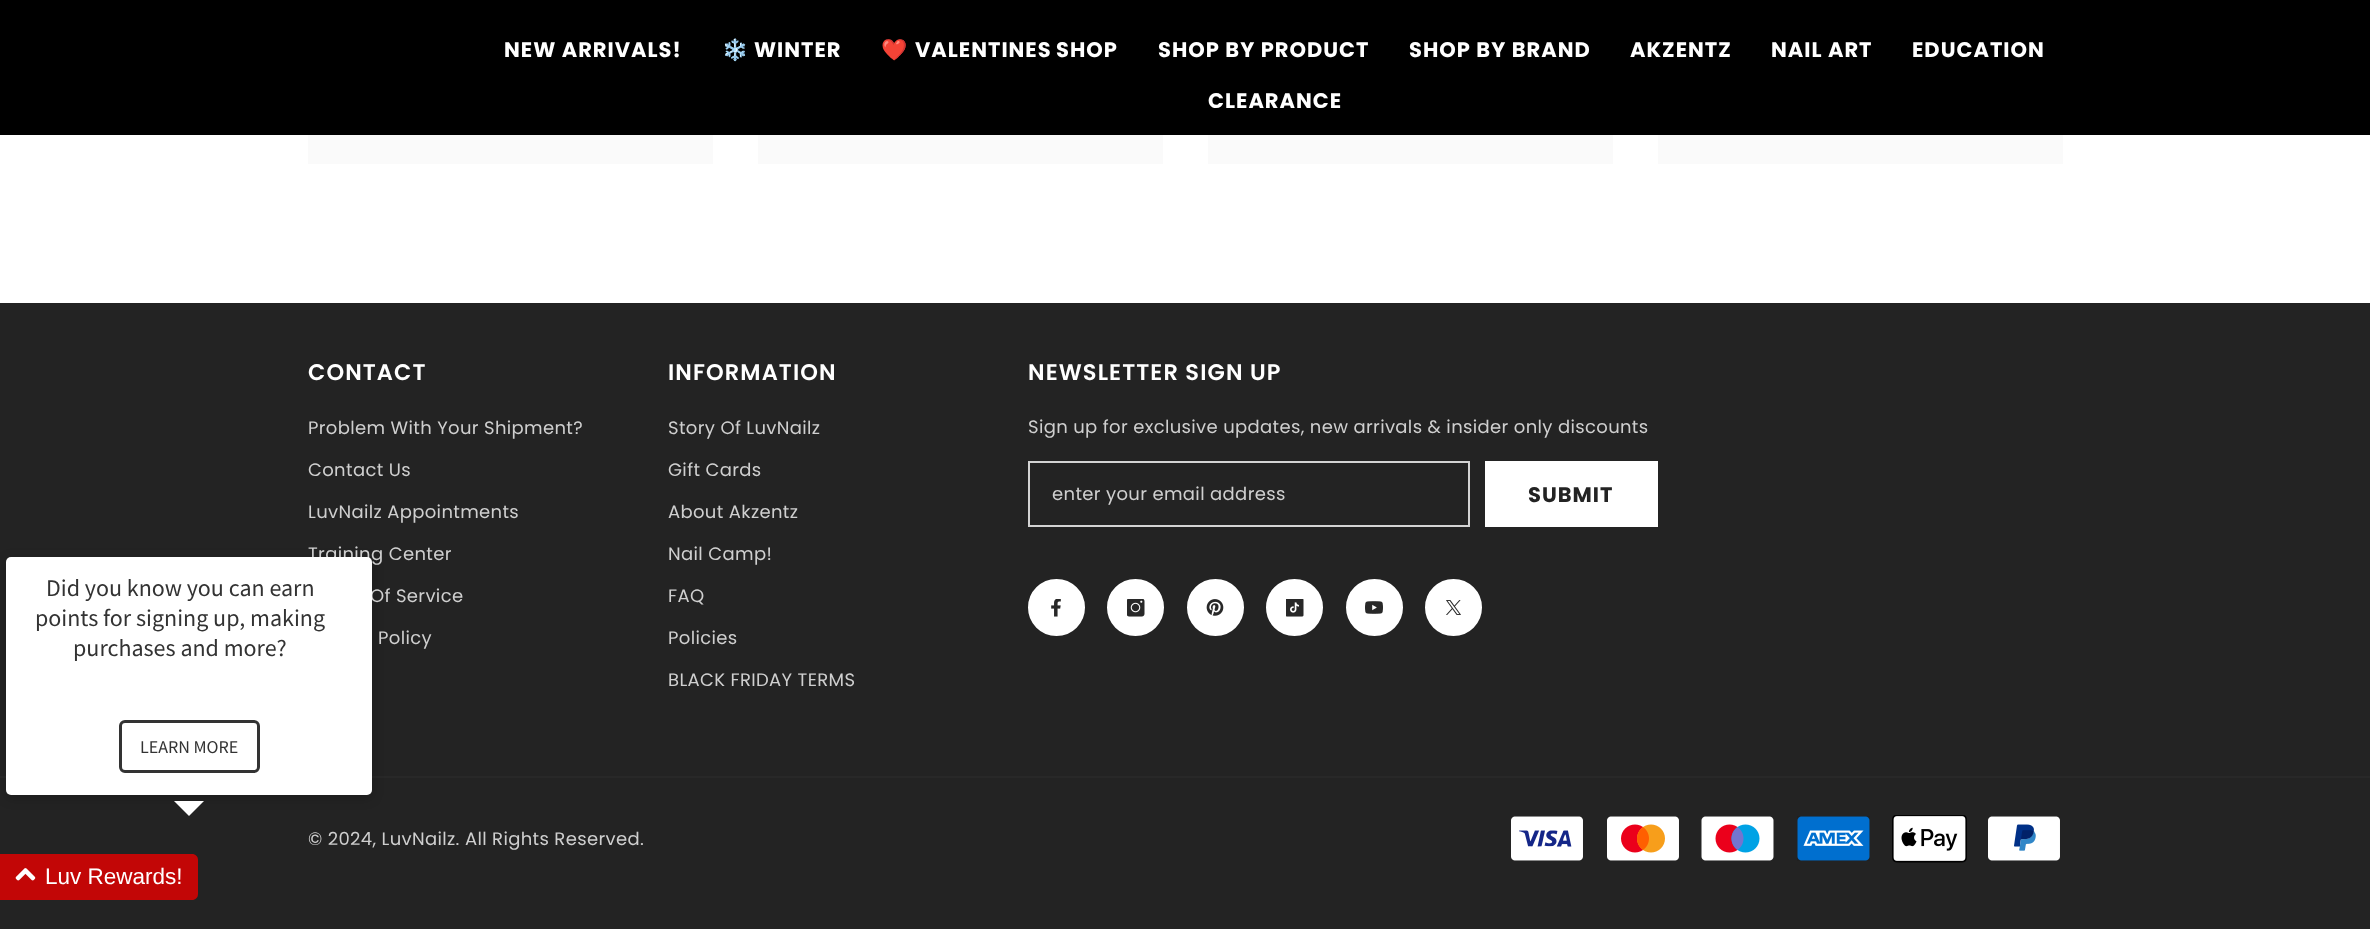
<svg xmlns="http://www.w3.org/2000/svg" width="2370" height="929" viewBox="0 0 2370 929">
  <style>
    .t1 { font: 18px Poppins; letter-spacing: 0.35px; fill: #cfcfcf; }
    .t2 { font: 24px Source Sans Pro; fill: #333; }
    .t3 { font: 18px Source Sans Pro; fill: #333; }
    .t4 { font: 22.5px Liberation Sans; fill: #fff; }
    .t5 { font: bold 21px Poppins; letter-spacing: 1px; fill: #fff; }
    .t6 { font: bold 21px Noto Color Emoji; letter-spacing: 1px; fill: #fff; }
    .t7 { font: 600 22.5px Poppins; letter-spacing: 1.1px; fill: #fff; }
    .t8 { font: bold 21px Poppins; letter-spacing: 1px; fill: #232323; }
  </style>
  <defs>
    <linearGradient id="g1" gradientUnits="userSpaceOnUse" x1="-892" y1="146" x2="2108" y2="146"><stop offset="0.04" stop-color="#fafafa"/><stop offset="0.25" stop-color="#f1f2f3"/><stop offset="0.36" stop-color="#fafafa"/></linearGradient>
    <linearGradient id="g2" gradientUnits="userSpaceOnUse" x1="-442" y1="146" x2="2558" y2="146"><stop offset="0.04" stop-color="#fafafa"/><stop offset="0.25" stop-color="#f1f2f3"/><stop offset="0.36" stop-color="#fafafa"/></linearGradient>
    <linearGradient id="g3" gradientUnits="userSpaceOnUse" x1="7.5" y1="146" x2="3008" y2="146"><stop offset="0.04" stop-color="#fafafa"/><stop offset="0.25" stop-color="#f1f2f3"/><stop offset="0.36" stop-color="#fafafa"/></linearGradient>
    <linearGradient id="g4" gradientUnits="userSpaceOnUse" x1="458" y1="146" x2="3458" y2="146"><stop offset="0.04" stop-color="#fafafa"/><stop offset="0.25" stop-color="#f1f2f3"/><stop offset="0.36" stop-color="#fafafa"/></linearGradient>
  </defs>
  <rect width="100%" height="100%" fill="#fff"/>
  <rect x="0" y="303" width="2370" height="473" fill="#232323"/>
  <rect x="0" y="778" width="2370" height="151" fill="#232323"/>
  <rect x="0" y="776" width="2370" height="2" fill="#282828"/>
  <rect x="6" y="560" width="366" height="238" rx="5" fill="#00000033" filter="blur(6px)"/>
  <text x="308" y="560" class="t1">Training Center</text>
  <text x="370" y="602" class="t1">Of Service</text>
  <rect x="6" y="557" width="366" height="238" rx="5" fill="#fff"/>
  <text x="46" y="596" class="t2">Did you know you can earn</text>
  <text x="35" y="626" class="t2">points for signing up, making</text>
  <text x="73" y="656" class="t2">purchases and more?</text>
  <rect x="120.5" y="721.5" width="138" height="50" rx="4.5" fill="none" stroke="#333" stroke-width="3"/>
  <text x="140" y="753" class="t3">LEARN MORE</text>
  <path d="M174 801H204L189 816Z" fill="#fff"/>
  <path d="M0 854H192C195.5 854 198 856.5 198 860V894C198 897.5 195.5 900 192 900H0Z" fill="#c20606"/>
  <image x="15" y="868" width="21" height="13" href="images/1.png"/>
  <text x="45" y="884" class="t4">Luv Rewards!</text>
  <rect x="0" y="0" width="2370" height="135" fill="#000"/>
  <text x="504" y="57" class="t5">NEW ARRIVALS!</text>
  <text x="722" y="57" class="t6">❄️</text>
  <text x="754" y="57" class="t5">WINTER</text>
  <text x="881" y="57" class="t6">❤️</text>
  <text x="915" y="57" word-spacing="-1" class="t5">VALENTINES SHOP</text>
  <text x="1158" y="57" class="t5">SHOP BY PRODUCT</text>
  <text x="1409" y="57" class="t5">SHOP BY BRAND</text>
  <text x="1630" y="57" class="t5">AKZENTZ</text>
  <text x="1771" y="57" class="t5">NAIL ART</text>
  <text x="1912" y="57" class="t5">EDUCATION</text>
  <text x="1208" y="108" class="t5">CLEARANCE</text>
  <rect x="308" y="135" width="405" height="29" fill="url(#g1)"/>
  <rect x="758" y="135" width="405" height="29" fill="url(#g2)"/>
  <rect x="1208" y="135" width="405" height="29" fill="url(#g3)"/>
  <rect x="1658" y="135" width="405" height="29" fill="url(#g4)"/>
  <text x="308" y="380" class="t7">CONTACT</text>
  <text x="308" y="434" class="t1">Problem With Your Shipment?</text>
  <text x="308" y="476" class="t1">Contact Us</text>
  <text x="308" y="518" class="t1">LuvNailz Appointments</text>
  <text x="378" y="644" class="t1">Policy</text>
  <text x="668" y="380" class="t7">INFORMATION</text>
  <text x="668" y="434" class="t1">Story Of LuvNailz</text>
  <text x="668" y="476" class="t1">Gift Cards</text>
  <text x="668" y="518" class="t1">About Akzentz</text>
  <text x="668" y="560" class="t1">Nail Camp!</text>
  <text x="668" y="602" class="t1">FAQ</text>
  <text x="668" y="644" class="t1">Policies</text>
  <text x="668" y="686" class="t1">BLACK FRIDAY TERMS</text>
  <text x="1028" y="380" class="t7">NEWSLETTER SIGN UP</text>
  <text x="1028" y="433" class="t1">Sign up for exclusive updates, new arrivals &amp; insider only discounts</text>
  <rect x="1029" y="462" width="440" height="64" fill="none" stroke="#d3d3d3" stroke-width="2"/>
  <text x="1052" y="500" class="t1">enter your email address</text>
  <rect x="1485" y="461" width="173" height="66" fill="#fff"/>
  <text x="1528" y="502" class="t8">SUBMIT</text>
  <circle cx="1056.5" cy="607.5" r="27.5" fill="#fff" stroke="#fff" stroke-width="2"/>
  <image x="1051" y="599" width="10" height="18" href="images/2.png"/>
  <circle cx="1135.5" cy="607.5" r="27.5" fill="#fff" stroke="#fff" stroke-width="2"/>
  <image x="1127" y="599" width="18" height="18" href="images/3.png"/>
  <circle cx="1215.5" cy="607.5" r="27.5" fill="#fff" stroke="#fff" stroke-width="2"/>
  <image x="1206" y="599" width="18" height="17" href="images/4.png"/>
  <circle cx="1294.5" cy="607.5" r="27.5" fill="#fff" stroke="#fff" stroke-width="2"/>
  <image x="1286" y="599" width="18" height="18" href="images/5.png"/>
  <circle cx="1374.5" cy="607.5" r="27.5" fill="#fff" stroke="#fff" stroke-width="2"/>
  <image x="1365" y="601" width="18" height="13" href="images/6.png"/>
  <circle cx="1453.5" cy="607.5" r="27.5" fill="#fff" stroke="#fff" stroke-width="2"/>
  <image x="1446" y="600" width="15" height="15" href="images/7.png"/>
  <text x="308" y="845" class="t1">© 2024, LuvNailz. All Rights Reserved.</text>
  <image x="1511" y="816" width="72" height="45" href="images/8.png"/>
  <image x="1607" y="816" width="72" height="45" href="images/9.png"/>
  <image x="1701" y="816" width="73" height="45" href="images/10.png"/>
  <image x="1797" y="816" width="73" height="45" href="images/11.png"/>
  <image x="1892" y="815" width="75" height="48" href="images/12.png"/>
  <image x="1988" y="816" width="72" height="45" href="images/13.png"/>
</svg>
